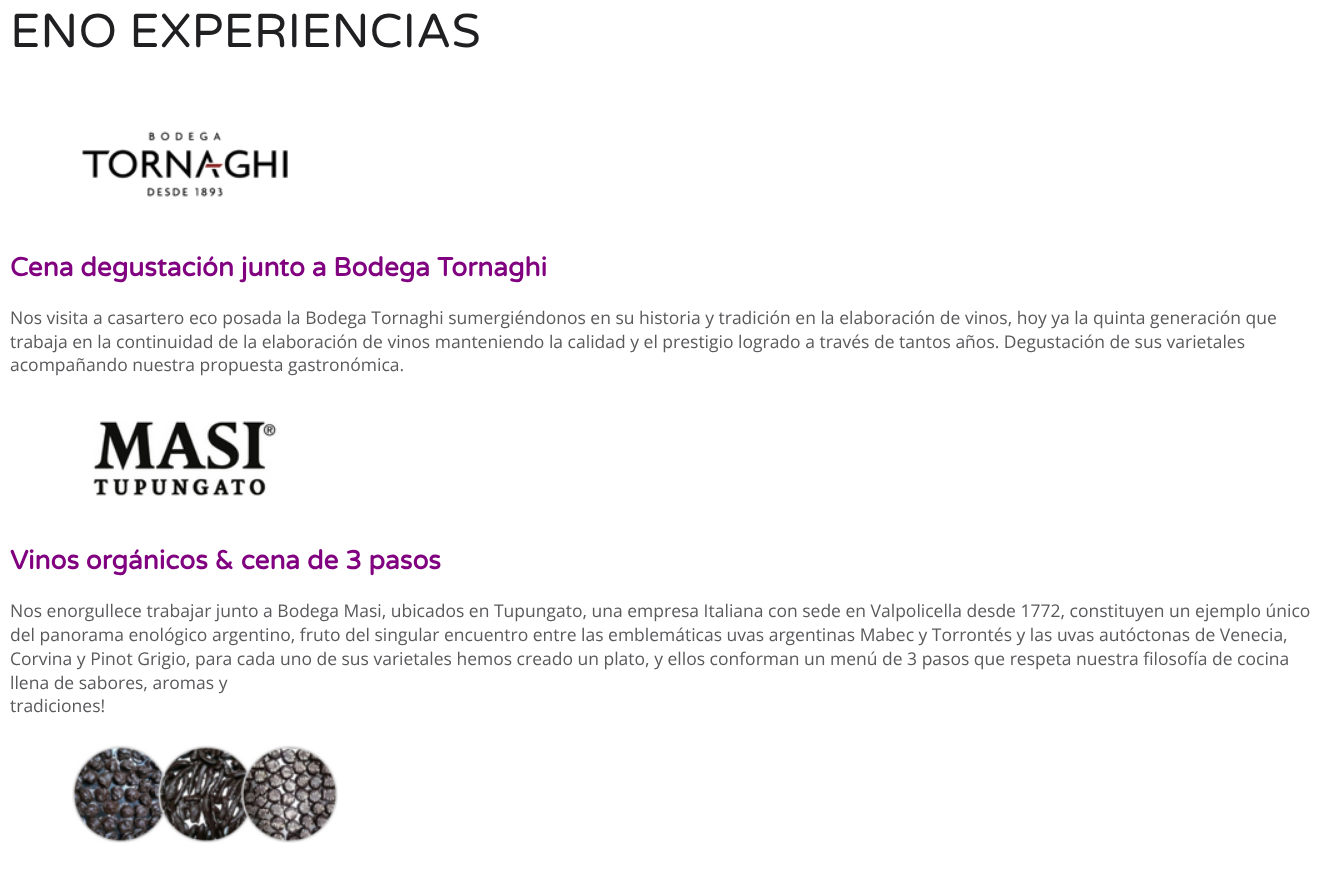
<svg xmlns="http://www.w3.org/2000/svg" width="1327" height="891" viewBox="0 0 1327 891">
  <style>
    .t1 { font: 47.5px Varela Round; fill: #201f22; }
    .t2 { font: bold 26.25px Varela Round; fill: #800080; }
    .t3 { font: 17.5px Open Sans; fill: #5a595c; }
  </style>
  <rect width="100%" height="100%" fill="#fff"/>
  <text x="10" y="47" class="t1">ENO EXPERIENCIAS</text>
  <image x="81" y="131" width="207" height="66" href="images/1.png"/>
  <text x="10" y="276" class="t2">Cena degustación junto a Bodega Tornaghi</text>
  <text x="10" y="324" class="t3">Nos visita a casartero eco posada la Bodega Tornaghi sumergiéndonos en su historia y tradición en la elaboración de vinos, hoy ya la quinta generación que</text>
  <text x="10" y="348" class="t3">trabaja en la continuidad de la elaboración de vinos manteniendo la calidad y el prestigio logrado a través de tantos años. Degustación de sus varietales</text>
  <text x="10" y="371" class="t3">acompañando nuestra propuesta gastronómica.</text>
  <image x="93" y="421" width="184" height="75" href="images/2.png"/>
  <text x="10" y="569" class="t2">Vinos orgánicos &amp; cena de 3 pasos</text>
  <text x="10" y="617" class="t3">Nos enorgullece trabajar junto a Bodega Masi, ubicados en Tupungato, una empresa Italiana con sede en Valpolicella desde 1772, constituyen un ejemplo único</text>
  <text x="10" y="641" class="t3">del panorama enológico argentino, fruto del singular encuentro entre las emblemáticas uvas argentinas Mabec y Torrontés y las uvas autóctonas de Venecia,</text>
  <text x="10" y="665" class="t3">Corvina y Pinot Grigio, para cada uno de sus varietales hemos creado un plato, y ellos conforman un menú de 3 pasos que respeta nuestra filosofía de cocina</text>
  <text x="10" y="689" class="t3">llena de sabores, aromas y</text>
  <text x="10" y="712" class="t3">tradiciones!</text>
  <image x="72" y="745" width="266" height="98" href="images/3.png"/>
</svg>
